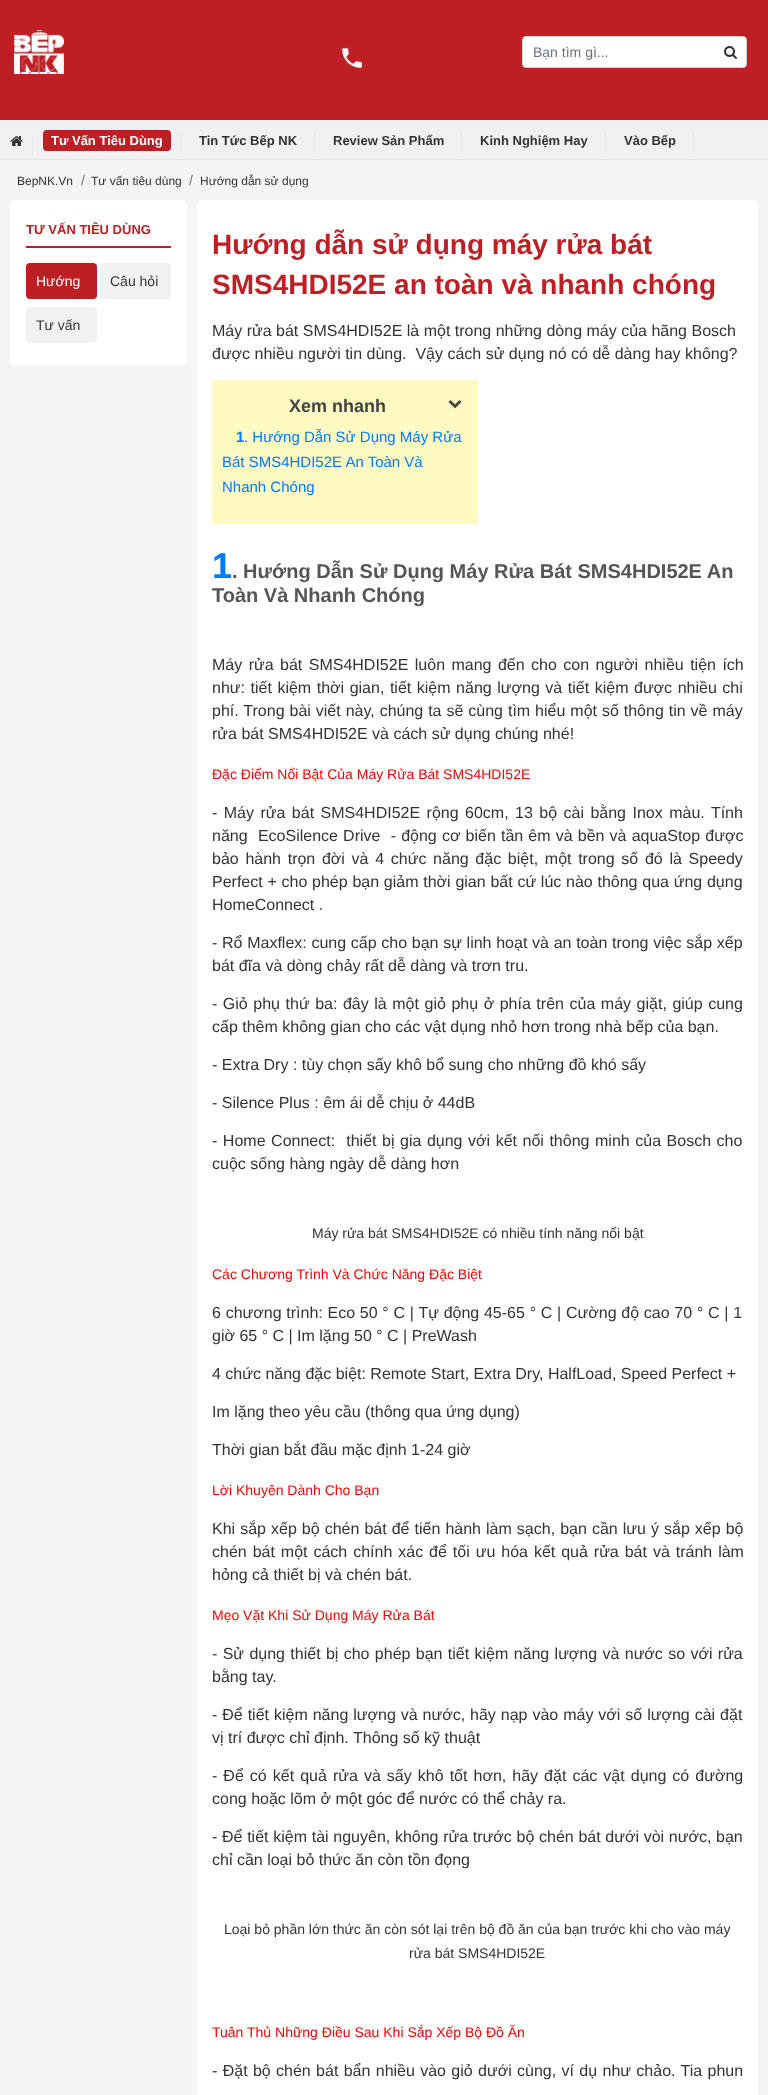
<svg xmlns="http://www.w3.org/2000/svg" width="768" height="2095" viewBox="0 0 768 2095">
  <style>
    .t1 { font: 14px Liberation Sans; fill: #6c757d; }
    .t2 { font: bold 13px Liberation Sans; fill: #fff; }
    .t3 { font: bold 13px Liberation Sans; fill: #333; }
    .t4 { font: 12px Liberation Sans; fill: #333; }
    .t5 { font: bold 13px Liberation Sans; fill: #be1f24; }
    .t6 { font: 14px Liberation Sans; fill: #fff; }
    .t7 { font: 14px Liberation Sans; fill: #333; }
    .t8 { font: bold 28px Liberation Sans; fill: #be1f24; }
    .t9 { font: 16px Liberation Sans; fill: #333; }
    .t10 { font: bold 18px Liberation Sans; fill: #444; }
    .t11 { font: bold 15px Liberation Sans; fill: #007bff; }
    .t12 { font: 15px Liberation Sans; fill: #007bff; }
    .t13 { font: bold 36px Liberation Sans; fill: #007bff; }
    .t14 { font: bold 20px Liberation Sans; fill: #555; }
    .t15 { font: 14px Liberation Sans; fill: #f00; }
  </style>
  <rect width="100%" height="100%" fill="#f4f4f4"/>
  <rect x="0" y="0" width="768" height="120" fill="#be1f24"/>
  <image x="14" y="30" width="50" height="44" href="images/1.png"/>
  <image x="341" y="47" width="22" height="22" href="images/2.png"/>
  <rect x="522.5" y="36.5" width="224" height="31" rx="3.5" fill="#fff" stroke="#ced4da"/>
  <text x="533" y="57" class="t1">Bạn tìm gì...</text>
  <image x="724" y="46" width="13" height="13" href="images/3.png"/>
  <rect x="0" y="120" width="768" height="39" fill="#f1f1f1"/>
  <rect x="0" y="159" width="768" height="1" fill="#e5e5e5"/>
  <image x="10" y="136" width="13" height="10" href="images/4.png"/>
  <rect x="32" y="135" width="1" height="20" fill="#e5e5e5"/>
  <rect x="43" y="130" width="128" height="21" rx="4" fill="#be1f24"/>
  <text x="51" y="145" class="t2">Tư Vấn Tiêu Dùng</text>
  <rect x="180" y="133" width="1" height="20" fill="#e5e5e5"/>
  <text x="199" y="145" class="t3">Tin Tức Bếp NK</text>
  <rect x="314" y="133" width="1" height="20" fill="#e5e5e5"/>
  <text x="333" y="145" class="t3">Review Sản Phẩm</text>
  <rect x="461" y="133" width="1" height="20" fill="#e5e5e5"/>
  <text x="480" y="145" class="t3">Kinh Nghiệm Hay</text>
  <rect x="605" y="133" width="1" height="20" fill="#e5e5e5"/>
  <text x="624" y="145" class="t3">Vào Bếp</text>
  <rect x="693" y="133" width="1" height="20" fill="#e5e5e5"/>
  <text x="17" y="185" class="t4">BepNK.Vn</text>
  <text x="81" y="185" class="t1">/</text>
  <text x="91" y="185" class="t4">Tư vấn tiêu dùng</text>
  <text x="189" y="185" class="t1">/</text>
  <text x="200" y="185" class="t4">Hướng dẫn sử dụng</text>
  <rect x="10" y="200" width="177" height="166" rx="5" fill="#fff"/>
  <rect x="26" y="246" width="145" height="2" fill="#be1f24"/>
  <text x="26" y="234" class="t5">TƯ VẤN TIÊU DÙNG</text>
  <rect x="26" y="263" width="71" height="36" rx="4" fill="#be1f24"/>
  <text x="36" y="286" class="t6">Hướng</text>
  <rect x="100" y="263" width="71" height="36" rx="4" fill="#f1f1f1"/>
  <text x="110" y="286" class="t7">Câu hỏi</text>
  <rect x="26" y="307" width="71" height="36" rx="4" fill="#f1f1f1"/>
  <text x="36" y="330" class="t7">Tư vấn</text>
  <rect x="197" y="200" width="561" height="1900" rx="5" fill="#fff"/>
  <text x="212" y="254" class="t8">Hướng dẫn sử dụng máy rửa bát</text>
  <text x="212" y="294" class="t8">SMS4HDI52E an toàn và nhanh chóng</text>
  <text x="212" y="336" class="t9">Máy rửa bát SMS4HDI52E là một trong những dòng máy của hãng Bosch</text>
  <text x="212" y="359" class="t9" xml:space="preserve">được nhiều người tin dùng.  Vậy cách sử dụng nó có dễ dàng hay không?</text>
  <rect x="212" y="380" width="266" height="144" fill="#fffac2"/>
  <text x="289" y="412" class="t10">Xem nhanh</text>
  <image x="448" y="400" width="14" height="9" href="images/5.png"/>
  <text x="236" y="442" class="t11">1</text>
  <text x="244" y="442" class="t12">. Hướng Dẫn Sử Dụng Máy Rửa</text>
  <text x="222" y="467" class="t12">Bát SMS4HDI52E An Toàn Và</text>
  <text x="222" y="492" class="t12">Nhanh Chóng</text>
  <text x="212" y="578" class="t13">1</text>
  <text x="232" y="578" class="t14">. Hướng Dẫn Sử Dụng Máy Rửa Bát SMS4HDI52E An</text>
  <text x="212" y="602" class="t14">Toàn Và Nhanh Chóng</text>
  <text x="212" y="670" word-spacing="2" class="t9">Máy rửa bát SMS4HDI52E luôn mang đến cho con người nhiều tiện ích</text>
  <text x="212" y="693" word-spacing="1.1" class="t9">như: tiết kiệm thời gian, tiết kiệm năng lượng và tiết kiệm được nhiều chi</text>
  <text x="212" y="716" word-spacing="0.5" class="t9">phí. Trong bài viết này, chúng ta sẽ cùng tìm hiểu một số thông tin về máy</text>
  <text x="212" y="739" class="t9">rửa bát SMS4HDI52E và cách sử dụng chúng nhé!</text>
  <text x="212" y="779" class="t15">Đặc Điểm Nổi Bật Của Máy Rửa Bát SMS4HDI52E</text>
  <text x="212" y="818" word-spacing="2" class="t9">- Máy rửa bát SMS4HDI52E rộng 60cm, 13 bộ cài bằng Inox màu. Tính</text>
  <text x="212" y="841" word-spacing="0.7" class="t9" xml:space="preserve">năng  EcoSilence Drive  - động cơ biến tần êm và bền và aquaStop được</text>
  <text x="212" y="864" word-spacing="2.25" class="t9">bảo hành trọn đời và 4 chức năng đặc biệt, một trong số đó là Speedy</text>
  <text x="212" y="887" word-spacing="0.3" class="t9">Perfect + cho phép bạn giảm thời gian bất cứ lúc nào thông qua ứng dụng</text>
  <text x="212" y="910" class="t9">HomeConnect .</text>
  <text x="212" y="948" word-spacing="0.25" class="t9">- Rổ Maxflex: cung cấp cho bạn sự linh hoạt và an toàn trong việc sắp xếp</text>
  <text x="212" y="971" class="t9">bát đĩa và dòng chảy rất dễ dàng và trơn tru.</text>
  <text x="212" y="1009" word-spacing="1.1" class="t9">- Giỏ phụ thứ ba: đây là một giỏ phụ ở phía trên của máy giặt, giúp cung</text>
  <text x="212" y="1032" class="t9">cấp thêm không gian cho các vật dụng nhỏ hơn trong nhà bếp của bạn.</text>
  <text x="212" y="1070" class="t9">- Extra Dry : tùy chọn sấy khô bổ sung cho những đồ khó sấy</text>
  <text x="212" y="1108" class="t9">- Silence Plus : êm ái dễ chịu ở 44dB</text>
  <text x="212" y="1146" word-spacing="1.1" class="t9" xml:space="preserve">- Home Connect:  thiết bị gia dụng với kết nối thông minh của Bosch cho</text>
  <text x="212" y="1169" class="t9">cuộc sống hàng ngày dễ dàng hơn</text>
  <text x="312" y="1238" class="t7">Máy rửa bát SMS4HDI52E có nhiều tính năng nổi bật</text>
  <text x="212" y="1279" class="t15">Các Chương Trình Và Chức Năng Đặc Biệt</text>
  <text x="212" y="1318" word-spacing="0.3" class="t9">6 chương trình: Eco 50 ° C | Tự động 45-65 ° C | Cường độ cao 70 ° C | 1</text>
  <text x="212" y="1341" class="t9">giờ 65 ° C | Im lặng 50 ° C | PreWash</text>
  <text x="212" y="1379" class="t9">4 chức năng đặc biệt: Remote Start, Extra Dry, HalfLoad, Speed Perfect +</text>
  <text x="212" y="1417" class="t9">Im lặng theo yêu cầu (thông qua ứng dụng)</text>
  <text x="212" y="1455" class="t9">Thời gian bắt đầu mặc định 1-24 giờ</text>
  <text x="212" y="1495" class="t15">Lời Khuyên Dành Cho Bạn</text>
  <text x="212" y="1534" word-spacing="0.6" class="t9">Khi sắp xếp bộ chén bát để tiến hành làm sạch, bạn cần lưu ý sắp xếp bộ</text>
  <text x="212" y="1557" word-spacing="1.5" class="t9">chén bát một cách chính xác để tối ưu hóa kết quả rửa bát và tránh làm</text>
  <text x="212" y="1580" class="t9">hỏng cả thiết bị và chén bát.</text>
  <text x="212" y="1620" class="t15">Mẹo Vặt Khi Sử Dụng Máy Rửa Bát</text>
  <text x="212" y="1659" word-spacing="0.9" class="t9">- Sử dụng thiết bị cho phép bạn tiết kiệm năng lượng và nước so với rửa</text>
  <text x="212" y="1682" class="t9">bằng tay.</text>
  <text x="212" y="1720" word-spacing="0.5" class="t9">- Để tiết kiệm năng lượng và nước, hãy nạp vào máy với số lượng cài đặt</text>
  <text x="212" y="1743" class="t9">vị trí được chỉ định. Thông số kỹ thuật</text>
  <text x="212" y="1781" word-spacing="1.6" class="t9">- Để có kết quả rửa và sấy khô tốt hơn, hãy đặt các vật dụng có đường</text>
  <text x="212" y="1804" class="t9">cong hoặc lõm ở một góc để nước có thể chảy ra.</text>
  <text x="212" y="1842" word-spacing="0.25" class="t9">- Để tiết kiệm tài nguyên, không rửa trước bộ chén bát dưới vòi nước, bạn</text>
  <text x="212" y="1865" class="t9">chỉ cần loại bỏ thức ăn còn tồn đọng</text>
  <text x="224" y="1934" class="t7">Loại bỏ phần lớn thức ăn còn sót lại trên bộ đồ ăn của bạn trước khi cho vào máy</text>
  <text x="409" y="1958" class="t7">rửa bát SMS4HDI52E</text>
  <text x="212" y="2037" class="t15">Tuân Thủ Những Điều Sau Khi Sắp Xếp Bộ Đồ Ăn</text>
  <text x="212" y="2076" word-spacing="0.9" class="t9">- Đặt bộ chén bát bẩn nhiều vào giỏ dưới cùng, ví dụ như chảo. Tia phun</text>
</svg>
